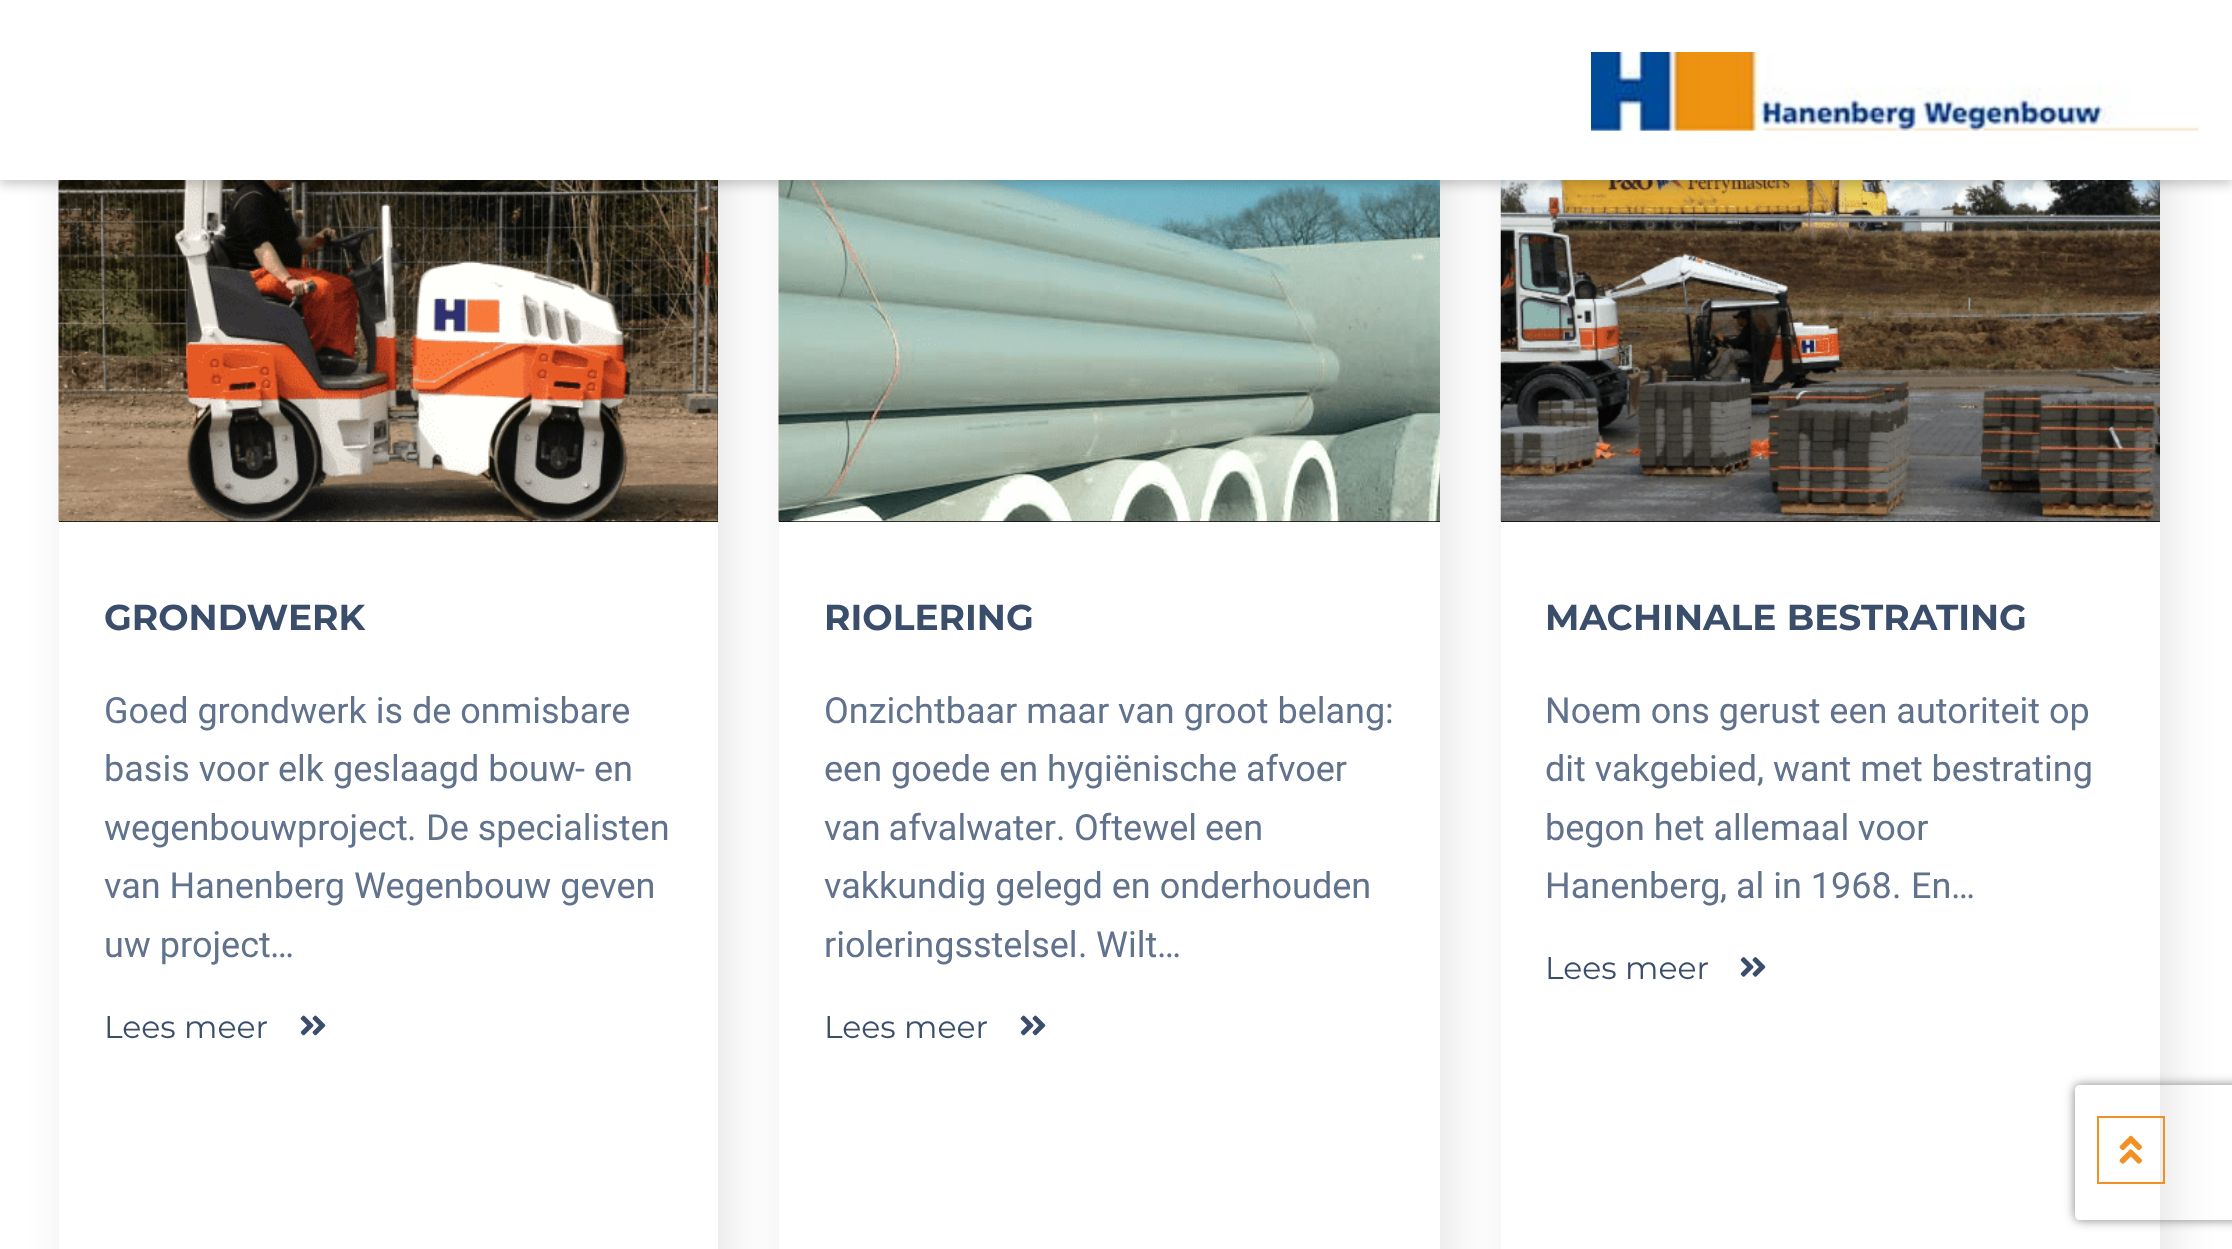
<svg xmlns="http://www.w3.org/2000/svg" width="2232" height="1249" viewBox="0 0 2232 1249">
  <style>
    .t1 { font: bold 36px Montserrat; fill: #3a4d6a; }
    .t2 { font: 36px Roboto; fill: #61728d; }
    .t3 { font: 36px 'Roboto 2'; fill: #61728d; }
    .t4 { font: 31.5px Montserrat; fill: #3a4d6a; }
  </style>
  <defs>
    <clipPath id="clip1"><path d="M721 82H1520V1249H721ZM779 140H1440V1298H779Z" clip-rule="evenodd"/></clipPath>
    <clipPath id="clip2"><path d="M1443 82H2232V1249H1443ZM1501 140H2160V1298H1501Z" clip-rule="evenodd"/></clipPath>
    <clipPath id="clip3"><path d="M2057 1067H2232V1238H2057ZM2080 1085H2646C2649 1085 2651 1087 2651 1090V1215C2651 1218 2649 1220 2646 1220H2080C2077 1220 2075 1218 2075 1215V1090C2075 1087 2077 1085 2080 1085Z" clip-rule="evenodd"/></clipPath>
  </defs>
  <rect width="100%" height="100%" fill="#fff"/>
  <rect x="70" y="151" width="659" height="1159" fill="#0000001a" filter="blur(22.5px)"/>
  <rect x="59" y="180" width="659" height="342" fill="#000"/>
  <image x="58" y="180" width="660" height="342" href="images/2.png"/>
  <g clip-path="url(#clip1)">
    <rect x="790" y="151" width="661" height="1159" fill="#0000001a" filter="blur(22.5px)"/>
  </g>
  <rect x="779" y="521" width="661" height="1" fill="#000"/>
  <image x="778" y="180" width="662" height="342" href="images/4.png"/>
  <g clip-path="url(#clip2)">
    <rect x="1512" y="151" width="659" height="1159" fill="#0000001a" filter="blur(22.5px)"/>
  </g>
  <rect x="1501" y="521" width="659" height="1" fill="#000"/>
  <image x="1500" y="180" width="660" height="342" href="images/5.png"/>
  <rect x="0" y="5" width="2232" height="180" fill="#00000033" filter="blur(5.5px)"/>
  <rect x="0" y="0" width="2232" height="180" fill="#fff"/>
  <image x="1591" y="52" width="608" height="79" href="images/1.png"/>
  <rect x="59" y="522" width="659" height="727" fill="#fff"/>
  <text x="104" y="630" class="t1">GRONDWERK</text>
  <text x="104" y="723" class="t2">Goed grondwerk is de onmisbare</text>
  <text x="104" y="781" class="t2">basis voor elk geslaagd bouw</text>
  <text x="575" y="781" class="t3">-</text>
  <text x="594" y="781" class="t2">en</text>
  <text x="104" y="840" class="t2">wegenbouwproject</text>
  <text x="407" y="840" class="t3">.</text>
  <text x="426" y="840" class="t2">De specialisten</text>
  <text x="104" y="898" class="t2">van Hanenberg Wegenbouw geven</text>
  <text x="104" y="957" class="t2">uw project</text>
  <text x="270" y="957" class="t3">…</text>
  <text x="104" y="1038" class="t4">Lees meer</text>
  <image x="300" y="1015" width="26" height="21" href="images/3.png"/>
  <text x="824" y="630" class="t1">RIOLERING</text>
  <text x="824" y="723" class="t2">Onzichtbaar maar van groot belang</text>
  <text x="1385" y="723" class="t3">:</text>
  <text x="824" y="781" class="t2">een goede en hygi</text>
  <text x="1113" y="781" class="t3">ë</text>
  <text x="1132" y="781" class="t2">nische afvoer</text>
  <text x="824" y="840" word-spacing="-1" class="t2">van afvalwater</text>
  <text x="1056" y="840" class="t3">.</text>
  <text x="1074" y="840" word-spacing="-1" class="t2">Oftewel een</text>
  <text x="824" y="898" class="t2">vakkundig gelegd en onderhouden</text>
  <text x="824" y="957" class="t2">rioleringsstelsel</text>
  <text x="1078" y="957" class="t3">.</text>
  <text x="1096" y="957" class="t2">Wilt</text>
  <text x="1157" y="957" class="t3">…</text>
  <text x="824" y="1038" class="t4">Lees meer</text>
  <image x="1020" y="1015" width="26" height="21" href="images/3.png"/>
  <text x="1545" y="630" class="t1">MACHINALE BESTRATING</text>
  <text x="1545" y="723" class="t2">Noem ons gerust een autoriteit op</text>
  <text x="1545" y="781" class="t2">dit vakgebied</text>
  <text x="1757" y="781" class="t3">,</text>
  <text x="1773" y="781" class="t2">want met bestrating</text>
  <text x="1545" y="840" class="t2">begon het allemaal voor</text>
  <text x="1545" y="898" class="t2">Hanenberg</text>
  <text x="1736" y="898" class="t2">al in 1968</text>
  <text x="1911" y="898" class="t2">En</text>
  <text x="1720" y="898" class="t3">,</text>
  <text x="1892" y="898" class="t3">.</text>
  <text x="1951" y="898" class="t3">…</text>
  <text x="1545" y="979" class="t4">Lees meer</text>
  <image x="1740" y="957" width="26" height="20" href="images/6.png"/>
  <g clip-path="url(#clip3)">
    <rect x="2075" y="1085" width="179" height="135" rx="5" fill="#808080" filter="blur(5.5px)"/>
  </g>
  <rect x="2098" y="1117" width="66" height="66" fill="none" stroke="#f19024" stroke-width="2"/>
  <image x="2119" y="1135" width="24" height="29" href="images/7.png"/>
</svg>
